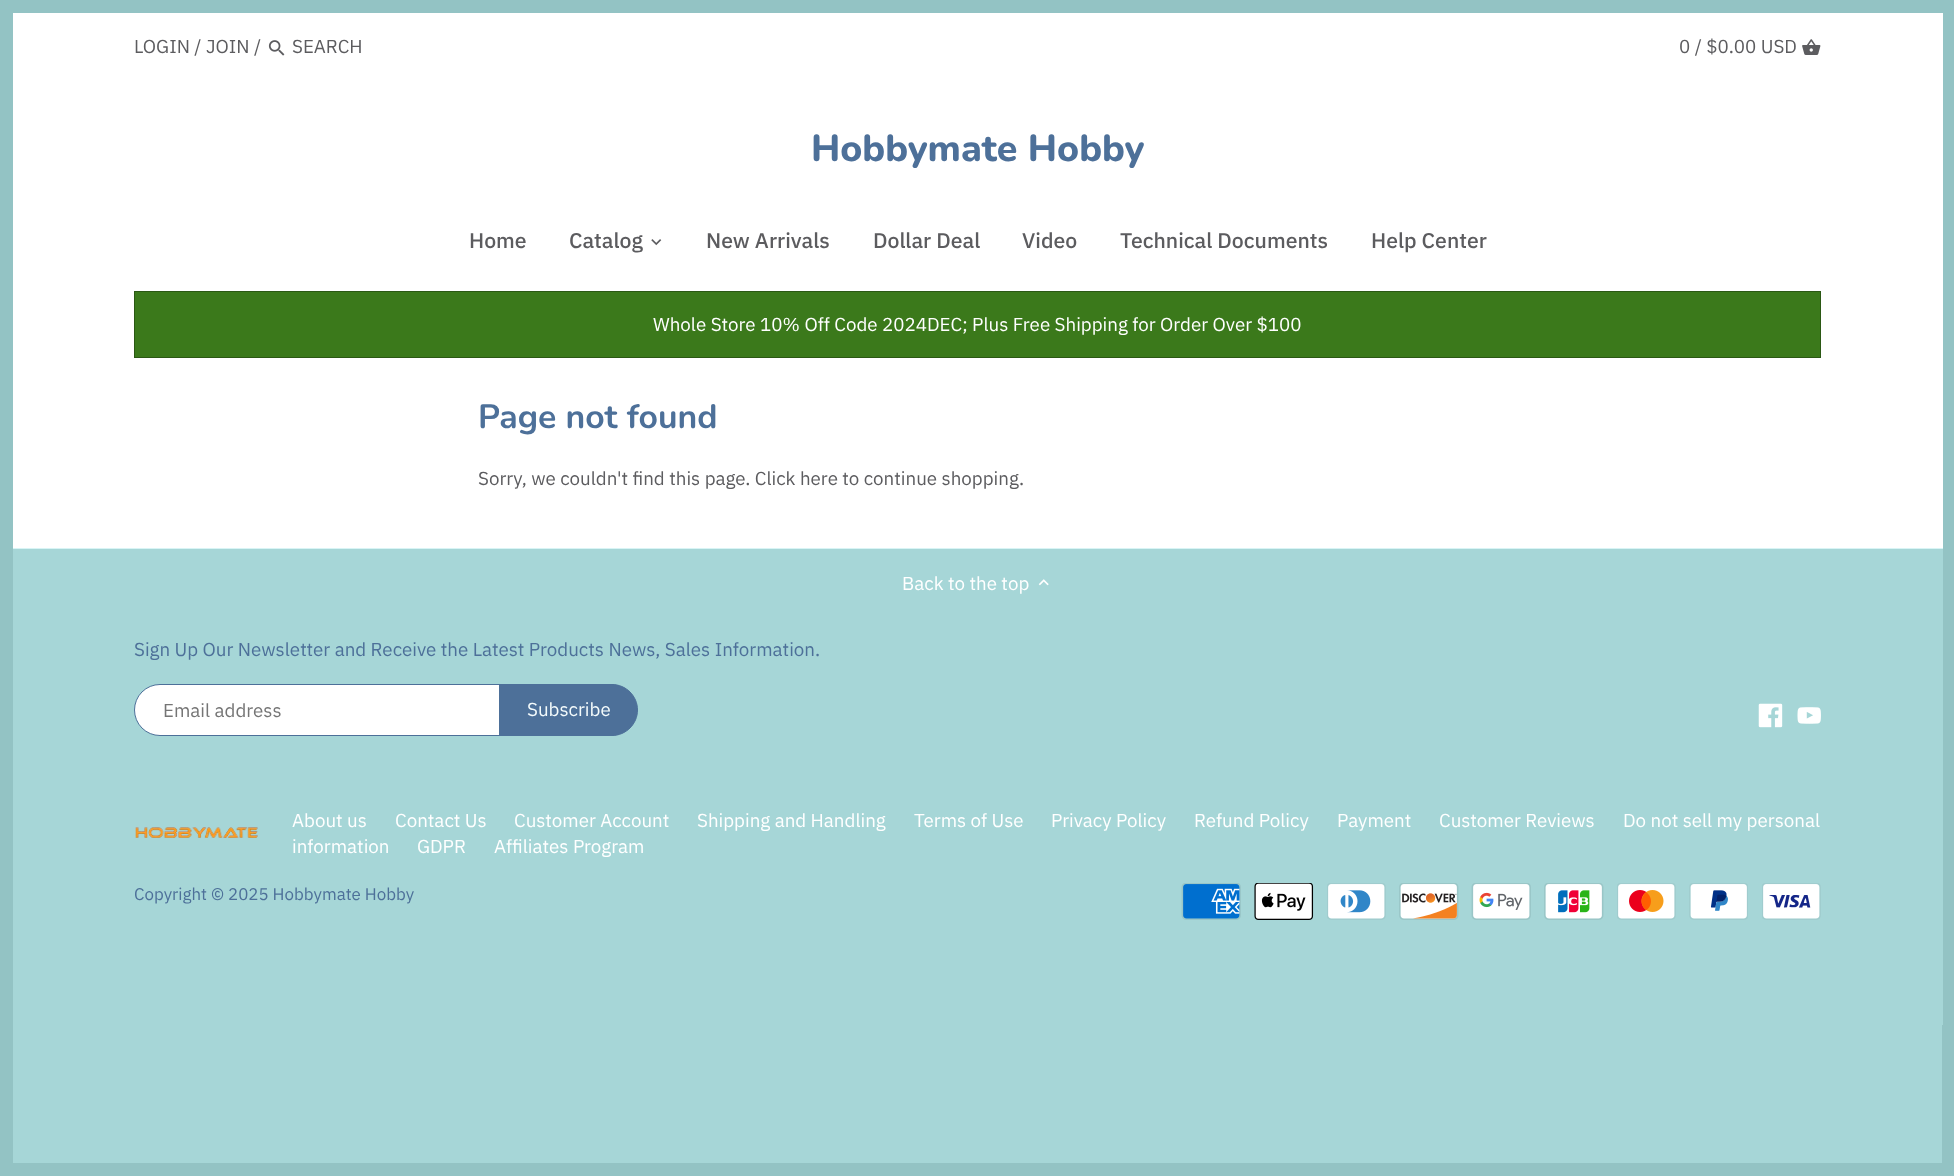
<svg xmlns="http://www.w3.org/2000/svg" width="1954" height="1176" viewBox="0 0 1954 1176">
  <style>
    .t1 { font: 18.75px IBM Plex Sans; fill: #5c5c5f; }
    .t2 { font: 800 37.5px Nunito; fill: #4d7099; }
    .t3 { font: 500 21.25px IBM Plex Sans; fill: #5c5c5f; }
    .t4 { font: 18.75px IBM Plex Sans; fill: #fff; }
    .t5 { font: bold 33.75px Nunito; fill: #4d7099; }
    .t6 { font: 18.75px IBM Plex Sans; fill: #4d7099; }
    .t7 { font: 18.75px IBM Plex Sans; fill: #757575; }
    .t8 { font: 18.75px IBM Plex Sans; fill: #f4fbfc; }
    .t9 { font: 16.9px IBM Plex Sans; fill: #4d7099; }
  </style>
  <rect width="100%" height="100%" fill="#a6d6d7"/>
  <rect x="6.5" y="6.5" width="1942" height="1163" fill="none" stroke="#93c3c4" stroke-width="13"/>
  <rect x="13" y="13" width="1930" height="535" fill="#fff"/>
  <text x="134" y="53" class="t1">LOGIN / JOIN /</text>
  <image x="268" y="40" width="17" height="16" href="images/1.png"/>
  <text x="292" y="53" class="t1">SEARCH</text>
  <text x="1679" y="53" class="t1">0 / $0.00 USD</text>
  <image x="1802" y="39" width="19" height="16" href="images/2.png"/>
  <text x="811" y="161" class="t2">Hobbymate Hobby</text>
  <text x="469" y="248" class="t3">Home</text>
  <text x="569" y="248" class="t3">Catalog</text>
  <image x="651" y="239" width="11" height="7" href="images/3.png"/>
  <text x="706" y="248" class="t3">New Arrivals</text>
  <text x="873" y="248" class="t3">Dollar Deal</text>
  <text x="1022" y="248" class="t3">Video</text>
  <text x="1120" y="248" class="t3">Technical Documents</text>
  <text x="1371" y="248" class="t3">Help Center</text>
  <rect x="134.5" y="291.5" width="1686" height="66" fill="#3b791b" stroke="#2b5814"/>
  <text x="653" y="331" class="t4">Whole Store 10% Off Code 2024DEC; Plus Free Shipping for Order Over $100</text>
  <text x="478" y="428" class="t5">Page not found</text>
  <text x="478" y="485" class="t1">Sorry, we couldn't find this page. Click here to continue shopping.</text>
  <rect x="1942" y="549" width="1" height="476" fill="#a6d6d7"/>
  <rect x="13" y="548" width="1930" height="1" fill="#d8f4f5"/>
  <text x="902" y="590" class="t4">Back to the top</text>
  <image x="1038" y="579" width="11" height="7" href="images/4.png"/>
  <text x="134" y="656" class="t6">Sign Up Our Newsletter and Receive the Latest Products News, Sales Information.</text>
  <rect x="134.5" y="684.5" width="501" height="51" rx="25.5" fill="#fff" stroke="#4d7099"/>
  <text x="163" y="717" class="t7">Email address</text>
  <path d="M499.5 684.5H612C626 684.5 637.5 696 637.5 710C637.5 724 626 735.5 612 735.5H499.5Z" fill="#4d7099" stroke="#4d7099"/>
  <text x="527" y="716" class="t8">Subscribe</text>
  <image x="1758" y="703" width="25" height="25" href="images/5.png"/>
  <image x="1797" y="707" width="24" height="17" href="images/6.png"/>
  <image x="135" y="827" width="123" height="11" href="images/7.png"/>
  <text x="292" y="827" class="t4">About us</text>
  <text x="395" y="827" class="t4">Contact Us</text>
  <text x="514" y="827" class="t4">Customer Account</text>
  <text x="697" y="827" class="t4">Shipping and Handling</text>
  <text x="914" y="827" class="t4">Terms of Use</text>
  <text x="1051" y="827" class="t4">Privacy Policy</text>
  <text x="1194" y="827" class="t4">Refund Policy</text>
  <text x="1337" y="827" class="t4">Payment</text>
  <text x="1439" y="827" class="t4">Customer Reviews</text>
  <text x="1623" y="827" class="t4">Do not sell my personal</text>
  <text x="292" y="853" class="t4">information</text>
  <text x="417" y="853" class="t4">GDPR</text>
  <text x="494" y="853" class="t4">Affiliates Program</text>
  <text x="134" y="900" class="t9">Copyright © 2025 Hobbymate Hobby</text>
  <image x="1181" y="883" width="60" height="37" href="images/8.png"/>
  <image x="1254" y="883" width="60" height="37" href="images/9.png"/>
  <image x="1327" y="883" width="59" height="37" href="images/10.png"/>
  <image x="1399" y="883" width="60" height="37" href="images/11.png"/>
  <image x="1471" y="883" width="60" height="37" href="images/12.png"/>
  <image x="1544" y="883" width="60" height="37" href="images/13.png"/>
  <image x="1617" y="883" width="59" height="37" href="images/14.png"/>
  <image x="1689" y="883" width="59" height="37" href="images/15.png"/>
  <image x="1762" y="883" width="59" height="37" href="images/16.png"/>
</svg>
